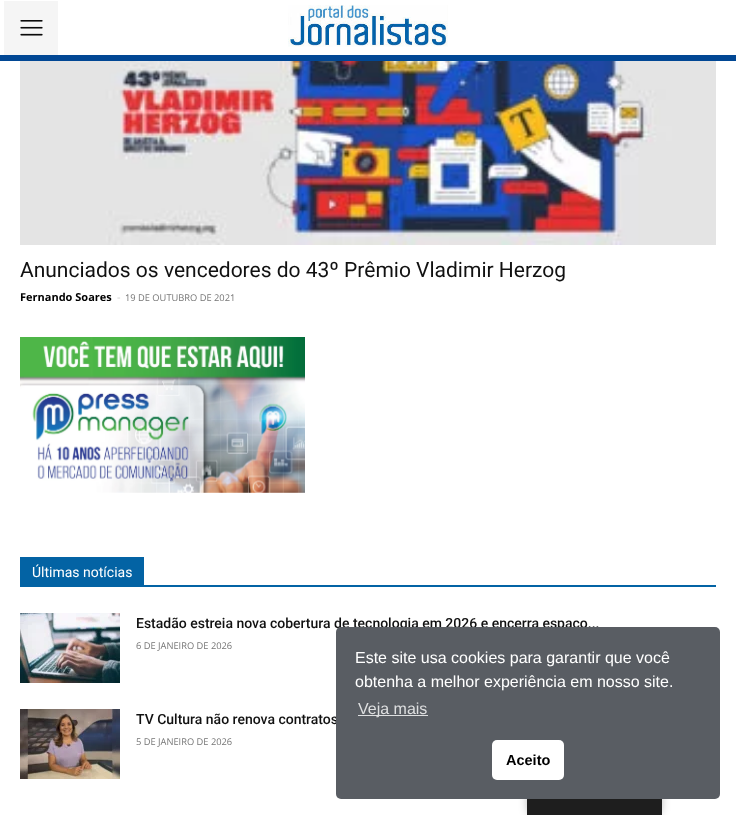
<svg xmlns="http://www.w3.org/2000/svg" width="736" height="815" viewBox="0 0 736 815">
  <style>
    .t1 { font: 21px Roboto; fill: #111; }
    .t2 { font: bold 11px Open Sans; fill: #000; }
    .t3 { font: 11px Open Sans; fill: #ccc; }
    .t4 { font: 9.3px Open Sans; fill: #767676; }
    .t5 { font: 14px Roboto; fill: #fff; }
    .t6 { font: 500 14px Roboto; fill: #111; }
    .t7 { font: 16px Liberation Sans; fill: #fff; }
    .t8 { font: 16px Liberation Sans; fill: #dedfe0; }
    .t9 { font: bold 14.5px Liberation Sans; fill: #000; }
  </style>
  <rect width="100%" height="100%" fill="#fff"/>
  <rect x="4" y="1" width="54" height="54" fill="#f5f5f5"/>
  <image x="20" y="20" width="23" height="16" href="images/1.png"/>
  <image x="288" y="5" width="160" height="42" href="images/2.png"/>
  <rect x="0" y="55" width="736" height="6" fill="#014794"/>
  <image x="20" y="61" width="696" height="184" href="images/3.png"/>
  <text x="20" y="277" class="t1">Anunciados os vencedores do 43º Prêmio Vladimir Herzog</text>
  <text x="20" y="301" class="t2">Fernando Soares</text>
  <text x="117" y="301" class="t3">-</text>
  <text x="125" y="301" class="t4">19 DE OUTUBRO DE 2021</text>
  <image x="20" y="337" width="285" height="156" href="images/4.png"/>
  <rect x="20" y="585" width="696" height="2" fill="#0363a4"/>
  <rect x="20" y="557" width="124" height="28" fill="#0363a4"/>
  <text x="32" y="577" class="t5">Últimas notícias</text>
  <image x="20" y="613" width="100" height="70" href="images/5.png"/>
  <text x="136" y="628" class="t6">Estadão estreia nova cobertura de tecnologia em 2026 e encerra espaço...</text>
  <text x="136" y="649" class="t4">6 DE JANEIRO DE 2026</text>
  <image x="20" y="709" width="100" height="70" href="images/6.png"/>
  <text x="136" y="724" class="t6">TV Cultura não renova contratos</text>
  <text x="136" y="745" class="t4">5 DE JANEIRO DE 2026</text>
  <rect x="527" y="757" width="135" height="58" rx="8" fill="#00000040" filter="blur(4px)"/>
  <rect x="336" y="627" width="384" height="172" rx="5" fill="#595d63"/>
  <text x="355" y="663" class="t7">Este site usa cookies para garantir que você</text>
  <text x="355" y="687" class="t7">obtenha a melhor experiência em nosso site.</text>
  <rect x="358" y="715" width="70" height="1" fill="#dedfe0"/>
  <text x="358" y="714" class="t8">Veja mais</text>
  <rect x="492" y="740" width="72" height="40" rx="5" fill="#fff"/>
  <text x="506" y="765" class="t9">Aceito</text>
  <rect x="527" y="799" width="135" height="16" fill="#1e1e1e"/>
</svg>
